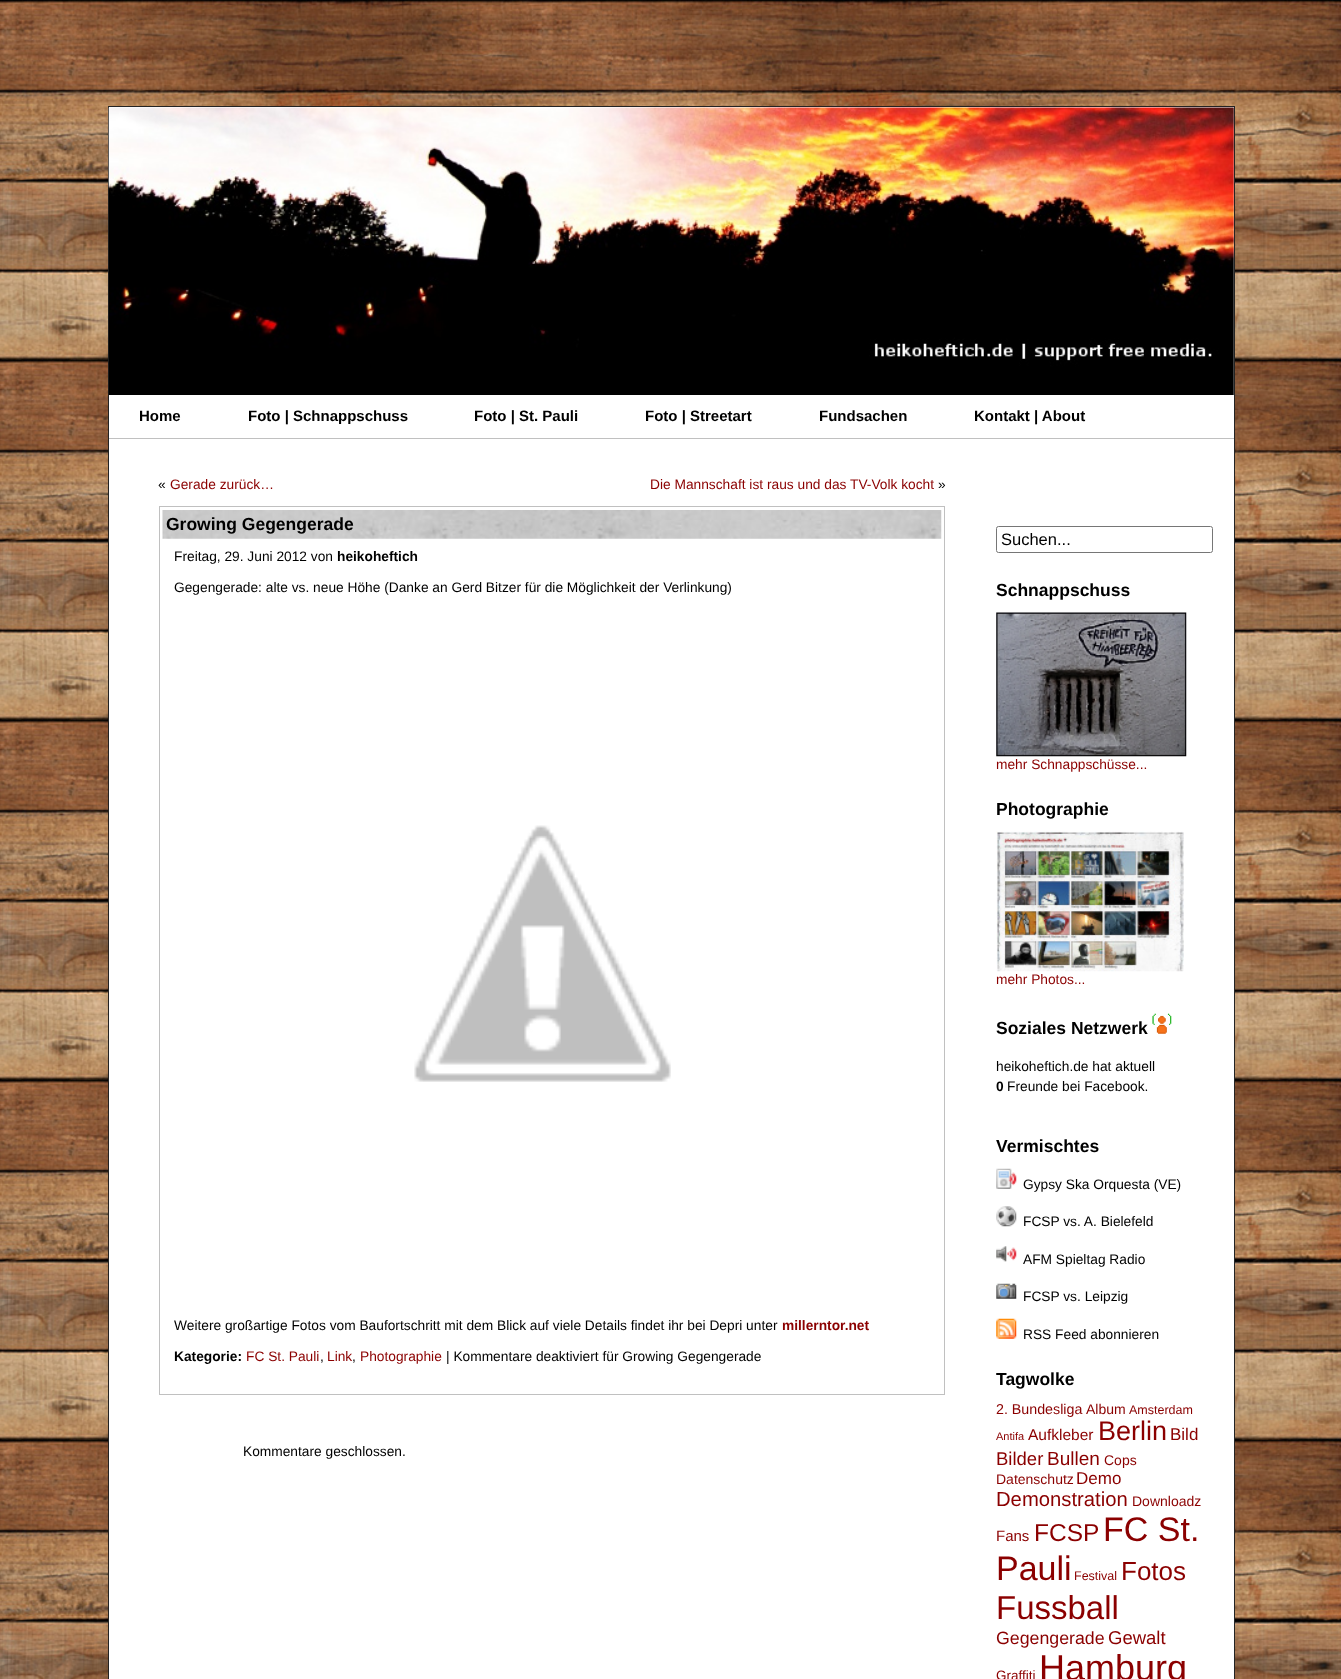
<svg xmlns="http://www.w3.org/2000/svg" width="1341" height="1679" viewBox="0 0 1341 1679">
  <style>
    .t1 { font: bold 15px Liberation Sans; fill: #000; }
    .t2 { font: 13.75px Liberation Sans; fill: #000; }
    .t3 { font: 13.75px Liberation Sans; fill: #8b0000; }
    .t4 { font: bold 17.5px Liberation Sans; fill: #000; }
    .t5 { font: bold 13.75px Liberation Sans; fill: #000; }
    .t6 { font: bold 13.75px Liberation Sans; fill: #8b0000; }
    .t7 { font: 16.5px Liberation Sans; fill: #000; }
    .t8 { font: 14.25px Liberation Sans; fill: #8b0000; }
    .t9 { font: 14px Liberation Sans; fill: #8b0000; }
    .t10 { font: 12.5px Liberation Sans; fill: #8b0000; }
    .t11 { font: 11px Liberation Sans; fill: #8b0000; }
    .t12 { font: 15.5px Liberation Sans; fill: #8b0000; }
    .t13 { font: 27px Liberation Sans; fill: #8b0000; }
    .t14 { font: 17px Liberation Sans; fill: #8b0000; }
    .t15 { font: 18.5px Liberation Sans; fill: #8b0000; }
    .t16 { font: 19px Liberation Sans; fill: #8b0000; }
    .t17 { font: 20.25px Liberation Sans; fill: #8b0000; }
    .t18 { font: 15px Liberation Sans; fill: #8b0000; }
    .t19 { font: 24.5px Liberation Sans; fill: #8b0000; }
    .t20 { font: 34px Liberation Sans; fill: #8b0000; }
    .t21 { font: 26px Liberation Sans; fill: #8b0000; }
    .t22 { font: 33px Liberation Sans; fill: #8b0000; }
    .t23 { font: 17.75px Liberation Sans; fill: #8b0000; }
    .t24 { font: 13.5px Liberation Sans; fill: #8b0000; }
    .t25 { font: 36px Liberation Sans; fill: #8b0000; }
  </style>
  <rect width="100%" height="100%" fill="#fff"/>
  <image x="0" y="0" width="1341" height="1679" href="images/1.png"/>
  <rect x="108.5" y="106.5" width="1126" height="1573" fill="#fff" stroke="#232323"/>
  <image x="108" y="107" width="1126" height="288" href="images/2.png"/>
  <rect x="109" y="438" width="1125" height="1" fill="#c0c0c0"/>
  <text x="139" y="421" class="t1">Home</text>
  <text x="248" y="421" class="t1">Foto | Schnappschuss</text>
  <text x="474" y="421" class="t1">Foto | St. Pauli</text>
  <text x="645" y="421" class="t1">Foto | Streetart</text>
  <text x="819" y="421" class="t1">Fundsachen</text>
  <text x="974" y="421" class="t1">Kontakt | About</text>
  <text x="158" y="489" class="t2">«</text>
  <text x="170" y="489" class="t3">Gerade zurück…</text>
  <text x="650" y="489" class="t3">Die Mannschaft ist raus und das TV-Volk kocht</text>
  <text x="938" y="489" class="t2">»</text>
  <rect x="159.5" y="506.5" width="785" height="888" fill="none" stroke="#c0c0c0"/>
  <image x="162" y="510" width="780" height="29" href="images/3.png"/>
  <text x="166" y="530" class="t4">Growing Gegengerade</text>
  <text x="174" y="561" class="t2">Freitag, 29. Juni 2012 von</text>
  <text x="337" y="561" class="t5">heikoheftich</text>
  <text x="174" y="592" class="t2">Gegengerade: alte vs. neue Höhe (Danke an Gerd Bitzer für die Möglichkeit der Verlinkung)</text>
  <image x="414" y="825" width="257" height="257" href="images/4.png"/>
  <text x="174" y="1330" class="t2">Weitere großartige Fotos vom Baufortschritt mit dem Blick auf viele Details findet ihr bei Depri unter</text>
  <text x="782" y="1330" class="t6">millerntor.net</text>
  <text x="174" y="1361" class="t5">Kategorie:</text>
  <text x="246" y="1361" class="t3">FC St. Pauli</text>
  <text x="320" y="1361" class="t2">,</text>
  <text x="327" y="1361" class="t3">Link</text>
  <text x="352" y="1361" class="t2">,</text>
  <text x="360" y="1361" class="t3">Photographie</text>
  <text x="446" y="1361" class="t2">| Kommentare deaktiviert für Growing Gegengerade</text>
  <text x="243" y="1456" class="t2">Kommentare geschlossen.</text>
  <rect x="996.5" y="526.5" width="216" height="26" rx="2" fill="none" stroke="#767676"/>
  <text x="1001" y="545" class="t7">Suchen...</text>
  <text x="996" y="596" class="t4">Schnappschuss</text>
  <image x="996" y="612" width="191" height="145" href="images/5.png"/>
  <text x="996" y="769" class="t3">mehr Schnappschüsse...</text>
  <text x="996" y="815" class="t4">Photographie</text>
  <image x="996" y="831" width="188" height="141" href="images/6.png"/>
  <text x="996" y="984" class="t3">mehr Photos...</text>
  <text x="996" y="1034" class="t4">Soziales Netzwerk</text>
  <image x="1152" y="1013" width="20" height="21" href="images/7.png"/>
  <text x="996" y="1071" class="t2">heikoheftich.de hat aktuell</text>
  <text x="996" y="1091" class="t5">0</text>
  <text x="1007" y="1091" class="t2">Freunde bei Facebook.</text>
  <text x="996" y="1152" class="t4">Vermischtes</text>
  <image x="996" y="1168" width="21" height="21" href="images/8.png"/>
  <text x="1023" y="1189" class="t2">Gypsy Ska Orquesta (VE)</text>
  <image x="996" y="1206" width="21" height="21" href="images/9.png"/>
  <text x="1023" y="1226" class="t2">FCSP vs. A. Bielefeld</text>
  <image x="996" y="1246" width="21" height="16" href="images/10.png"/>
  <text x="1023" y="1264" class="t2">AFM Spieltag Radio</text>
  <image x="996" y="1283" width="21" height="16" href="images/11.png"/>
  <text x="1023" y="1301" class="t2">FCSP vs. Leipzig</text>
  <image x="996" y="1318" width="21" height="21" href="images/12.png"/>
  <text x="1023" y="1339" class="t2">RSS Feed abonnieren</text>
  <text x="996" y="1385" class="t4">Tagwolke</text>
  <text x="996" y="1414" class="t8">2. Bundesliga</text>
  <text x="1086" y="1414" class="t9">Album</text>
  <text x="1129" y="1414" class="t10">Amsterdam</text>
  <text x="996" y="1440" class="t11">Antifa</text>
  <text x="1028" y="1440" class="t12">Aufkleber</text>
  <text x="1098" y="1440" class="t13">Berlin</text>
  <text x="1170" y="1440" class="t14">Bild</text>
  <text x="996" y="1465" class="t15">Bilder</text>
  <text x="1047" y="1465" class="t16">Bullen</text>
  <text x="1104" y="1465" class="t9">Cops</text>
  <text x="996" y="1484" class="t9">Datenschutz</text>
  <text x="1076" y="1484" class="t14">Demo</text>
  <text x="996" y="1506" class="t17">Demonstration</text>
  <text x="1132" y="1506" class="t9">Downloadz</text>
  <text x="996" y="1541" class="t18">Fans</text>
  <text x="1034" y="1541" class="t19">FCSP</text>
  <text x="1103" y="1541" class="t20">FC St.</text>
  <text x="996" y="1580" class="t20">Pauli</text>
  <text x="1074" y="1580" class="t10">Festival</text>
  <text x="1121" y="1580" class="t21">Fotos</text>
  <text x="996" y="1619" class="t22">Fussball</text>
  <text x="996" y="1644" class="t23">Gegengerade</text>
  <text x="1108" y="1644" class="t15">Gewalt</text>
  <text x="996" y="1680" class="t24">Graffiti</text>
  <text x="1039" y="1680" class="t25">Hamburg</text>
</svg>
